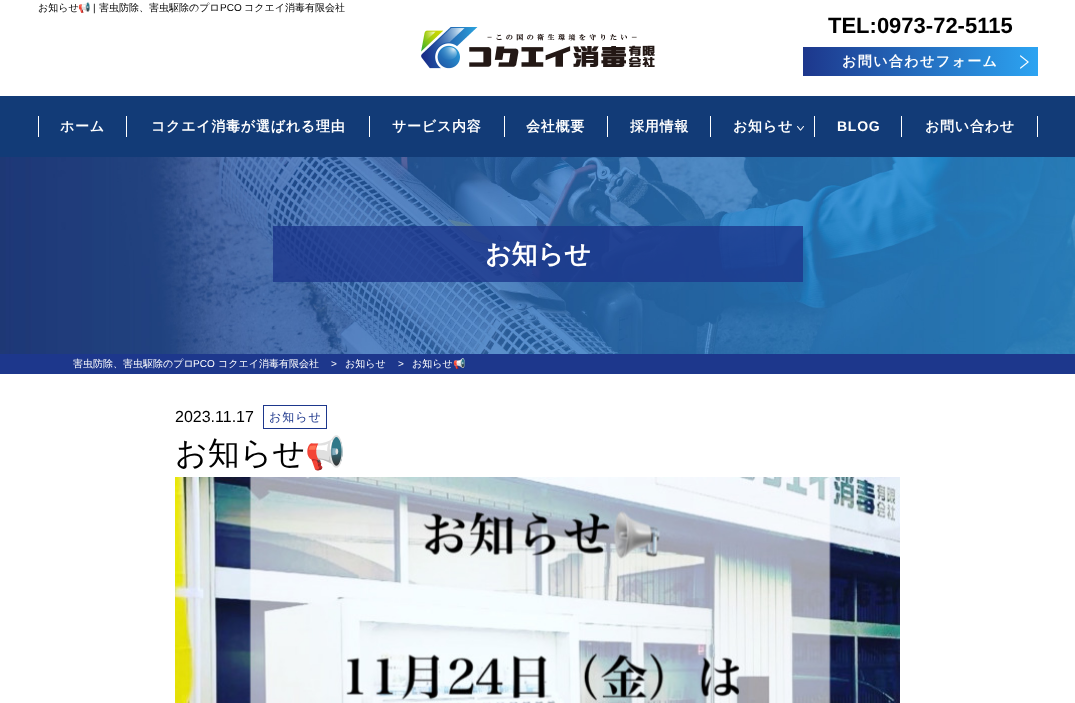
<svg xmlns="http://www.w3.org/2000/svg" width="1075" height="703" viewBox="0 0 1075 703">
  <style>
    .t1 { font: 500 10px WenQuanYi Zen Hei; fill: #000; }
    .t2 { font: 10px Noto Color Emoji; fill: #000; }
    .t3 { font: 10px Liberation Sans; fill: #000; }
    .t4 { font: bold 22px Liberation Sans; fill: #000; }
    .t5 { font: bold 14px WenQuanYi Zen Hei; letter-spacing: 1.4px; fill: #fff; }
    .t6 { font: bold 14px WenQuanYi Zen Hei; letter-spacing: 0.75px; fill: #fff; }
    .t7 { font: bold 14px Liberation Sans; letter-spacing: 0.75px; fill: #fff; }
    .t8 { font: bold 26px WenQuanYi Zen Hei; fill: #fff; }
    .t9 { font: 500 10px WenQuanYi Zen Hei; fill: #fff; }
    .t10 { font: 10px Liberation Sans; fill: #fff; }
    .t11 { font: 10px Noto Color Emoji; fill: #fff; }
    .t12 { font: 16px Liberation Sans; fill: #000; }
    .t13 { font: 500 12px WenQuanYi Zen Hei; letter-spacing: 1px; fill: #1d378c; }
    .t14 { font: 500 32px WenQuanYi Zen Hei; fill: #000; }
    .t15 { font: 32px Noto Color Emoji; fill: #000; }
  </style>
  <defs>
    <linearGradient id="g1" gradientUnits="userSpaceOnUse" x1="803" y1="62" x2="1038" y2="61"><stop offset="0" stop-color="#1d378c"/><stop offset="1" stop-color="#2ca4f2"/></linearGradient>
  </defs>
  <rect width="100%" height="100%" fill="#fff"/>
  <text x="38" y="11" class="t1">お知らせ</text>
  <text x="78" y="11" class="t2">📢</text>
  <text x="93" y="11" class="t3">|</text>
  <text x="99" y="11" class="t1">害虫防除、害虫駆除のプロ</text>
  <text x="220" y="11" class="t3">PCO</text>
  <text x="244" y="11" class="t1">コクエイ消毒有限会社</text>
  <image x="421" y="27" width="234" height="42" href="images/1.png"/>
  <text x="828" y="33" class="t4">TEL:0973-72-5115</text>
  <rect x="803" y="47" width="235" height="29" fill="url(#g1)"/>
  <text x="842" y="66" class="t5">お問い合わせフォーム</text>
  <image x="1020" y="55" width="9" height="14" href="images/2.png"/>
  <rect x="0" y="96" width="1075" height="61" fill="#123b77"/>
  <rect x="38" y="116" width="1" height="21" fill="#fff"/>
  <text x="60" y="131" class="t6">ホーム</text>
  <rect x="126" y="116" width="1" height="21" fill="#fff"/>
  <text x="151" y="131" class="t6">コクエイ消毒が選ばれる理由</text>
  <rect x="369" y="116" width="1" height="21" fill="#fff"/>
  <text x="392" y="131" class="t6">サービス内容</text>
  <rect x="504" y="116" width="1" height="21" fill="#fff"/>
  <text x="526" y="131" class="t6">会社概要</text>
  <rect x="607" y="116" width="1" height="21" fill="#fff"/>
  <text x="630" y="131" class="t6">採用情報</text>
  <rect x="710" y="116" width="1" height="21" fill="#fff"/>
  <image x="797" y="126" width="7" height="5" href="images/3.png"/>
  <text x="733" y="131" class="t6">お知らせ</text>
  <rect x="814" y="116" width="1" height="21" fill="#fff"/>
  <text x="837" y="131" class="t7">BLOG</text>
  <rect x="1037" y="116" width="1" height="21" fill="#fff"/>
  <rect x="901" y="116" width="1" height="21" fill="#fff"/>
  <text x="925" y="131" class="t6">お問い合わせ</text>
  <image x="0" y="157" width="1075" height="197" href="images/4.png"/>
  <rect x="273" y="226" width="530" height="56" fill="#1d378ccc"/>
  <text x="485" y="263" class="t8">お知らせ</text>
  <rect x="0" y="354" width="1075" height="20" fill="#1d378c"/>
  <text x="73" y="367" class="t9">害虫防除、害虫駆除のプロ</text>
  <text x="193" y="367" class="t10">PCO</text>
  <text x="218" y="367" class="t9">コクエイ消毒有限会社</text>
  <text x="331" y="367" class="t10">&gt;</text>
  <text x="345" y="367" class="t9">お知らせ</text>
  <text x="398" y="367" class="t10">&gt;</text>
  <text x="412" y="367" class="t9">お知らせ</text>
  <text x="453" y="367" class="t11">📢</text>
  <text x="175" y="422" class="t12">2023.11.17</text>
  <rect x="263.5" y="405.5" width="63" height="23" fill="none" stroke="#1d378c"/>
  <text x="269" y="421" class="t13">お知らせ</text>
  <text x="175" y="464" class="t14">お知らせ</text>
  <text x="305" y="464" class="t15">📢</text>
  <image x="175" y="477" width="725" height="226" href="images/5.png"/>
</svg>
